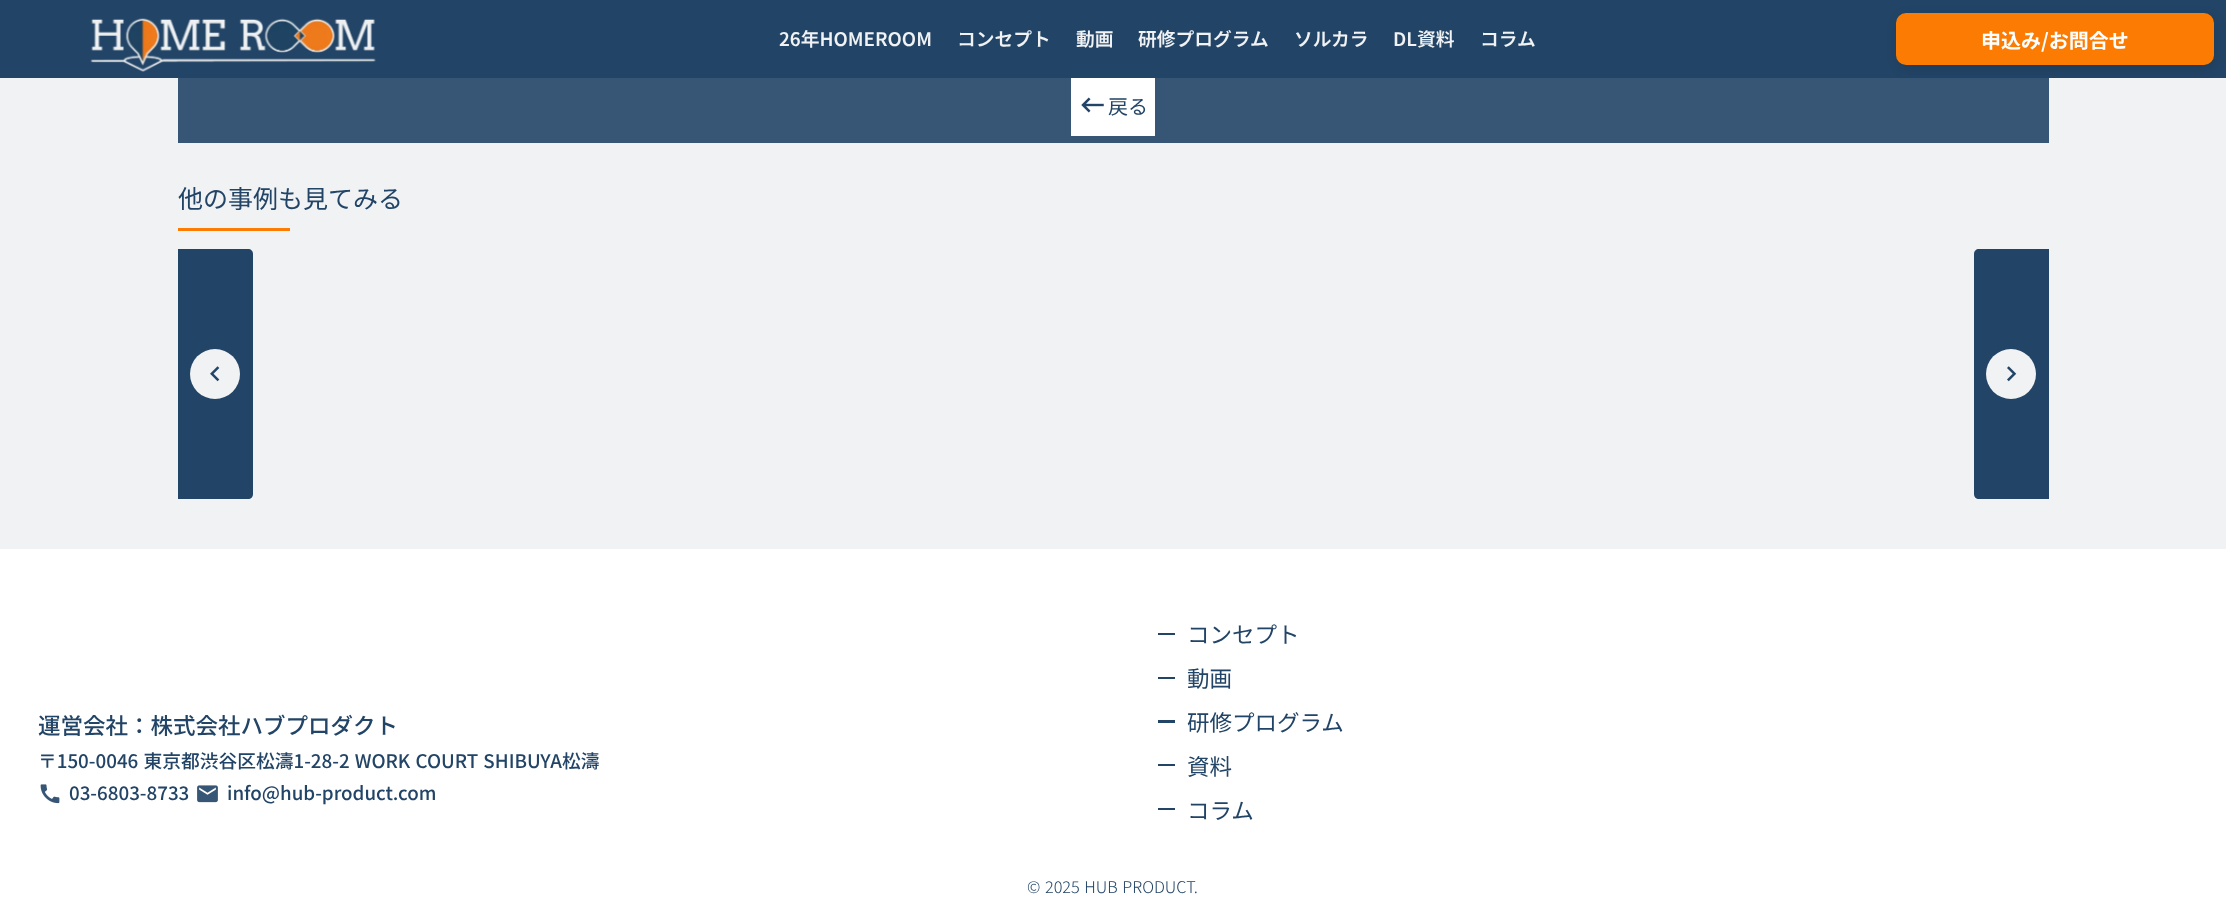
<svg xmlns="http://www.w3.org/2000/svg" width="2226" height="903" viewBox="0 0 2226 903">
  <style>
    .t1 { font: 600 18.75px Noto Sans JP; fill: #f0f2f4; }
    .t2 { font: bold 20px Noto Sans JP; fill: #fff; }
    .t3 { font: 20px Noto Sans JP; fill: #246; }
    .t4 { font: 25px Noto Sans JP; fill: #246; }
    .t5 { font: 500 22.5px Noto Sans JP; fill: #246; }
    .t6 { font: 500 18.75px Noto Sans JP; fill: #246; }
    .t7 { font: 22.5px Noto Sans JP; fill: #246; }
    .t8 { font: 300 16.25px Noto Sans JP; fill: #246; }
  </style>
  <rect width="100%" height="100%" fill="#f0f2f4"/>
  <rect x="0" y="0" width="2226" height="78" fill="#246"/>
  <image x="90" y="18" width="286" height="54" href="images/1.png"/>
  <text x="779" y="46" class="t1">26年HOMEROOM</text>
  <text x="957" y="46" class="t1">コンセプト</text>
  <text x="1076" y="46" class="t1">動画</text>
  <text x="1138" y="46" class="t1">研修プログラム</text>
  <text x="1294" y="46" class="t1">ソルカラ</text>
  <text x="1393" y="46" class="t1">DL資料</text>
  <text x="1480" y="46" class="t1">コラム</text>
  <rect x="178" y="78" width="1871" height="65" fill="#375574"/>
  <rect x="1898" y="16" width="317" height="53" rx="10" fill="#0000001a" filter="blur(6px)"/>
  <rect x="1896" y="13" width="318" height="52" rx="10" fill="#fc7c03"/>
  <text x="1981" y="48" class="t2">申込み/お問合せ</text>
  <rect x="1071" y="78" width="84" height="58" fill="#fff"/>
  <image x="1081" y="97" width="23" height="16" href="images/2.png"/>
  <text x="1108" y="114" class="t3">戻る</text>
  <text x="178" y="208" class="t4">他の事例も見てみる</text>
  <rect x="178" y="228" width="112" height="3" fill="#fc7c03"/>
  <path d="M178 249H248C251 249 253 251 253 254V494C253 497 251 499 248 499H178Z" fill="#246"/>
  <circle cx="215" cy="374" r="25" fill="#f0f2f4"/>
  <image x="210" y="366" width="10" height="16" href="images/3.png"/>
  <path d="M1979 249H2049V499H1979C1976 499 1974 497 1974 494V254C1974 251 1976 249 1979 249Z" fill="#246"/>
  <circle cx="2011" cy="374" r="25" fill="#f0f2f4"/>
  <image x="2007" y="366" width="10" height="16" href="images/4.png"/>
  <rect x="0" y="549" width="2226" height="354" fill="#fff"/>
  <text x="38" y="734" class="t5">運営会社：株式会社ハブプロダクト</text>
  <text x="38" y="768" word-spacing="1" class="t6">〒150-0046 東京都渋谷区松濤1-28-2 WORK COURT SHIBUYA松濤</text>
  <image x="40" y="784" width="20" height="20" href="images/5.png"/>
  <text x="69" y="800" class="t6">03-6803-8733</text>
  <image x="197" y="785" width="21" height="18" href="images/6.png"/>
  <text x="227" y="800" class="t6">info@hub-product.com</text>
  <rect x="1158" y="633" width="17" height="2" fill="#246"/>
  <text x="1187" y="643" class="t7">コンセプト</text>
  <rect x="1158" y="677" width="17" height="2" fill="#246"/>
  <text x="1187" y="687" class="t7">動画</text>
  <rect x="1158" y="720" width="17" height="3" fill="#246"/>
  <text x="1187" y="731" class="t7">研修プログラム</text>
  <rect x="1158" y="764" width="17" height="2" fill="#246"/>
  <text x="1187" y="775" class="t7">資料</text>
  <rect x="1158" y="808" width="17" height="2" fill="#246"/>
  <text x="1187" y="819" class="t7">コラム</text>
  <text x="1027" y="893" word-spacing="1" class="t8">©︎ 2025 HUB PRODUCT.</text>
</svg>
